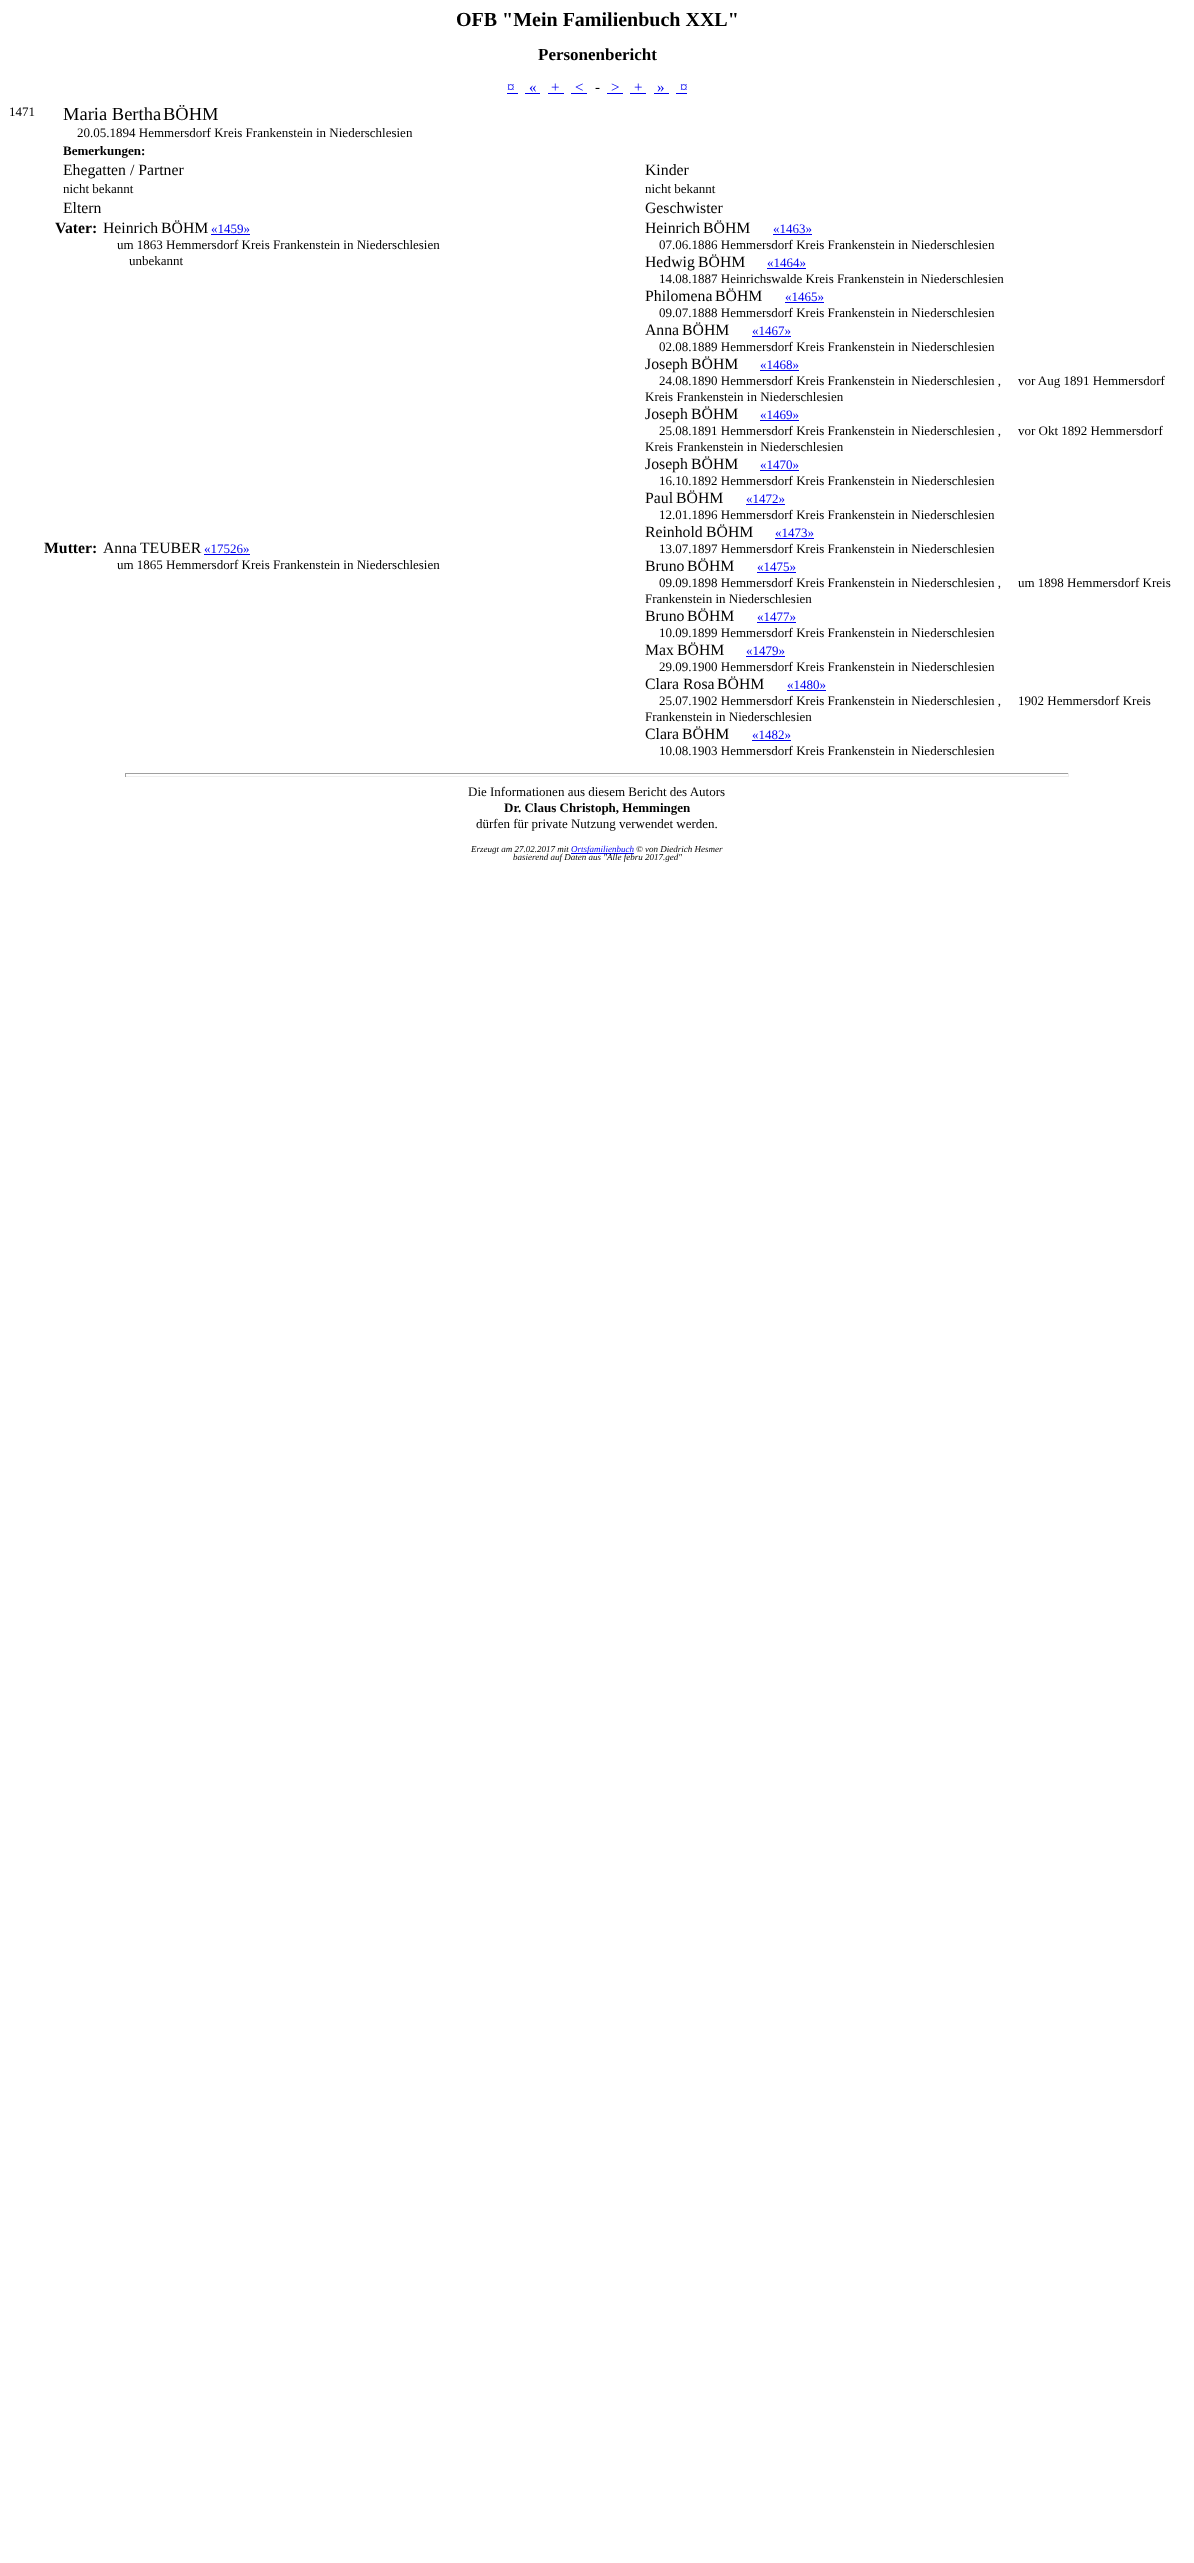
<svg xmlns="http://www.w3.org/2000/svg" width="1194" height="2563" viewBox="0 0 1194 2563">
  <style>
    .t1 { font: bold 20px Liberation Serif; fill: #000; }
    .t2 { font: bold 17px Liberation Serif; fill: #000; }
    .t3 { font: 15px Liberation Serif; fill: #00e; }
    .t4 { font: 15px Liberation Serif; fill: #000; }
    .t5 { font: 13px Liberation Serif; fill: #000; }
    .t6 { font: 18.5px Liberation Serif; fill: #000; }
    .t7 { font: bold 13px Liberation Serif; fill: #000; }
    .t8 { font: 15.75px Liberation Serif; fill: #000; }
    .t9 { font: bold 15.75px Liberation Serif; fill: #000; }
    .t10 { font: 13px Liberation Serif; fill: #00e; }
    .t11 { font: italic 9px Liberation Serif; fill: #000; }
    .t12 { font: italic 9px Liberation Serif; fill: #00e; }
  </style>
  <rect width="100%" height="100%" fill="#fff"/>
  <text x="456" y="26" class="t1">OFB "Mein Familienbuch XXL"</text>
  <text x="538" y="60" class="t2">Personenbericht</text>
  <text x="507" y="92" class="t3">¤</text>
  <rect x="507" y="93" width="11" height="1" fill="#00e"/>
  <text x="529" y="92" class="t3">«</text>
  <rect x="525" y="93" width="15" height="1" fill="#00e"/>
  <text x="551" y="92" class="t3">+</text>
  <rect x="548" y="93" width="16" height="1" fill="#00e"/>
  <text x="575" y="92" class="t3">&lt;</text>
  <rect x="571" y="93" width="16" height="1" fill="#00e"/>
  <text x="595" y="92" class="t4">-</text>
  <text x="611" y="92" class="t3">&gt;</text>
  <rect x="607" y="93" width="16" height="1" fill="#00e"/>
  <text x="634" y="92" class="t3">+</text>
  <rect x="630" y="93" width="16" height="1" fill="#00e"/>
  <text x="657" y="92" class="t3">»</text>
  <rect x="654" y="93" width="15" height="1" fill="#00e"/>
  <text x="680" y="92" class="t3">¤</text>
  <rect x="676" y="93" width="11" height="1" fill="#00e"/>
  <text x="9" y="116" class="t5">1471</text>
  <text x="63" y="120" class="t6">Maria Bertha</text>
  <text x="163" y="120" class="t6">BÖHM</text>
  <text x="77" y="137" class="t5">20.05.1894 Hemmersdorf Kreis Frankenstein in Niederschlesien</text>
  <text x="63" y="155" class="t7">Bemerkungen:</text>
  <text x="63" y="175" class="t8">Ehegatten / Partner</text>
  <text x="645" y="175" class="t8">Kinder</text>
  <text x="63" y="193" class="t5">nicht bekannt</text>
  <text x="645" y="193" class="t5">nicht bekannt</text>
  <text x="63" y="213" class="t8">Eltern</text>
  <text x="645" y="213" class="t8">Geschwister</text>
  <text x="55" y="233" class="t9">Vater:</text>
  <text x="103" y="233" class="t8">Heinrich</text>
  <text x="161" y="233" class="t8">BÖHM</text>
  <text x="211" y="233" class="t10">«1459»</text>
  <rect x="211" y="234" width="39" height="1" fill="#00e"/>
  <text x="117" y="249" class="t5">um 1863 Hemmersdorf Kreis Frankenstein in Niederschlesien</text>
  <text x="129" y="265" class="t5">unbekannt</text>
  <text x="645" y="233" class="t8">Heinrich</text>
  <text x="703" y="233" class="t8">BÖHM</text>
  <text x="773" y="233" class="t10">«1463»</text>
  <rect x="773" y="234" width="39" height="1" fill="#00e"/>
  <text x="659" y="249" class="t5">07.06.1886 Hemmersdorf Kreis Frankenstein in Niederschlesien</text>
  <text x="645" y="267" class="t8">Hedwig</text>
  <text x="698" y="267" class="t8">BÖHM</text>
  <text x="767" y="267" class="t10">«1464»</text>
  <rect x="767" y="268" width="39" height="1" fill="#00e"/>
  <text x="659" y="283" class="t5">14.08.1887 Heinrichswalde Kreis Frankenstein in Niederschlesien</text>
  <text x="645" y="301" class="t8">Philomena</text>
  <text x="715" y="301" class="t8">BÖHM</text>
  <text x="785" y="301" class="t10">«1465»</text>
  <rect x="785" y="302" width="39" height="1" fill="#00e"/>
  <text x="659" y="317" class="t5">09.07.1888 Hemmersdorf Kreis Frankenstein in Niederschlesien</text>
  <text x="645" y="335" class="t8">Anna</text>
  <text x="682" y="335" class="t8">BÖHM</text>
  <text x="752" y="335" class="t10">«1467»</text>
  <rect x="752" y="336" width="39" height="1" fill="#00e"/>
  <text x="659" y="351" class="t5">02.08.1889 Hemmersdorf Kreis Frankenstein in Niederschlesien</text>
  <text x="645" y="369" class="t8">Joseph</text>
  <text x="691" y="369" class="t8">BÖHM</text>
  <text x="760" y="369" class="t10">«1468»</text>
  <rect x="760" y="370" width="39" height="1" fill="#00e"/>
  <text x="659" y="385" class="t5">24.08.1890 Hemmersdorf Kreis Frankenstein in Niederschlesien ,</text>
  <text x="1018" y="385" class="t5">vor Aug 1891 Hemmersdorf</text>
  <text x="645" y="401" class="t5">Kreis Frankenstein in Niederschlesien</text>
  <text x="645" y="419" class="t8">Joseph</text>
  <text x="691" y="419" class="t8">BÖHM</text>
  <text x="760" y="419" class="t10">«1469»</text>
  <rect x="760" y="420" width="39" height="1" fill="#00e"/>
  <text x="659" y="435" class="t5">25.08.1891 Hemmersdorf Kreis Frankenstein in Niederschlesien ,</text>
  <text x="1018" y="435" class="t5">vor Okt 1892 Hemmersdorf</text>
  <text x="645" y="451" class="t5">Kreis Frankenstein in Niederschlesien</text>
  <text x="645" y="469" class="t8">Joseph</text>
  <text x="691" y="469" class="t8">BÖHM</text>
  <text x="760" y="469" class="t10">«1470»</text>
  <rect x="760" y="470" width="39" height="1" fill="#00e"/>
  <text x="659" y="485" class="t5">16.10.1892 Hemmersdorf Kreis Frankenstein in Niederschlesien</text>
  <text x="645" y="503" class="t8">Paul</text>
  <text x="676" y="503" class="t8">BÖHM</text>
  <text x="746" y="503" class="t10">«1472»</text>
  <rect x="746" y="504" width="39" height="1" fill="#00e"/>
  <text x="659" y="519" class="t5">12.01.1896 Hemmersdorf Kreis Frankenstein in Niederschlesien</text>
  <text x="645" y="537" class="t8">Reinhold</text>
  <text x="706" y="537" class="t8">BÖHM</text>
  <text x="775" y="537" class="t10">«1473»</text>
  <rect x="775" y="538" width="39" height="1" fill="#00e"/>
  <text x="659" y="553" class="t5">13.07.1897 Hemmersdorf Kreis Frankenstein in Niederschlesien</text>
  <text x="645" y="571" class="t8">Bruno</text>
  <text x="687" y="571" class="t8">BÖHM</text>
  <text x="757" y="571" class="t10">«1475»</text>
  <rect x="757" y="572" width="39" height="1" fill="#00e"/>
  <text x="659" y="587" class="t5">09.09.1898 Hemmersdorf Kreis Frankenstein in Niederschlesien ,</text>
  <text x="1018" y="587" class="t5">um 1898 Hemmersdorf Kreis</text>
  <text x="645" y="603" class="t5">Frankenstein in Niederschlesien</text>
  <text x="645" y="621" class="t8">Bruno</text>
  <text x="687" y="621" class="t8">BÖHM</text>
  <text x="757" y="621" class="t10">«1477»</text>
  <rect x="757" y="622" width="39" height="1" fill="#00e"/>
  <text x="659" y="637" class="t5">10.09.1899 Hemmersdorf Kreis Frankenstein in Niederschlesien</text>
  <text x="645" y="655" class="t8">Max</text>
  <text x="677" y="655" class="t8">BÖHM</text>
  <text x="746" y="655" class="t10">«1479»</text>
  <rect x="746" y="656" width="39" height="1" fill="#00e"/>
  <text x="659" y="671" class="t5">29.09.1900 Hemmersdorf Kreis Frankenstein in Niederschlesien</text>
  <text x="645" y="689" class="t8">Clara Rosa</text>
  <text x="717" y="689" class="t8">BÖHM</text>
  <text x="787" y="689" class="t10">«1480»</text>
  <rect x="787" y="690" width="39" height="1" fill="#00e"/>
  <text x="659" y="705" class="t5">25.07.1902 Hemmersdorf Kreis Frankenstein in Niederschlesien ,</text>
  <text x="1018" y="705" class="t5">1902 Hemmersdorf Kreis</text>
  <text x="645" y="721" class="t5">Frankenstein in Niederschlesien</text>
  <text x="645" y="739" class="t8">Clara</text>
  <text x="682" y="739" class="t8">BÖHM</text>
  <text x="752" y="739" class="t10">«1482»</text>
  <rect x="752" y="740" width="39" height="1" fill="#00e"/>
  <text x="659" y="755" class="t5">10.08.1903 Hemmersdorf Kreis Frankenstein in Niederschlesien</text>
  <text x="44" y="553" class="t9">Mutter:</text>
  <text x="103" y="553" class="t8">Anna</text>
  <text x="140" y="553" class="t8">TEUBER</text>
  <text x="204" y="553" class="t10">«17526»</text>
  <rect x="204" y="554" width="46" height="1" fill="#00e"/>
  <text x="117" y="569" class="t5">um 1865 Hemmersdorf Kreis Frankenstein in Niederschlesien</text>
  <rect x="125" y="773" width="944" height="1" fill="#9f9f9f"/>
  <rect x="1068" y="773" width="1" height="4" fill="#eee"/>
  <rect x="125" y="776" width="944" height="1" fill="#eee"/>
  <rect x="125" y="773" width="1" height="4" fill="#9f9f9f"/>
  <text x="468" y="796" class="t5">Die Informationen aus diesem Bericht des Autors</text>
  <text x="504" y="812" class="t7">Dr. Claus Christoph, Hemmingen</text>
  <text x="476" y="828" class="t5">dürfen für private Nutzung verwendet werden.</text>
  <text x="471" y="852" class="t11">Erzeugt am 27.02.2017 mit</text>
  <rect x="571" y="853" width="63" height="1" fill="#00e"/>
  <text x="571" y="852" class="t12">Ortsfamilienbuch</text>
  <text x="636" y="852" class="t11">© von Diedrich Hesmer</text>
  <text x="513" y="860" class="t11">basierend auf Daten aus "Alle febru 2017.ged"</text>
</svg>
